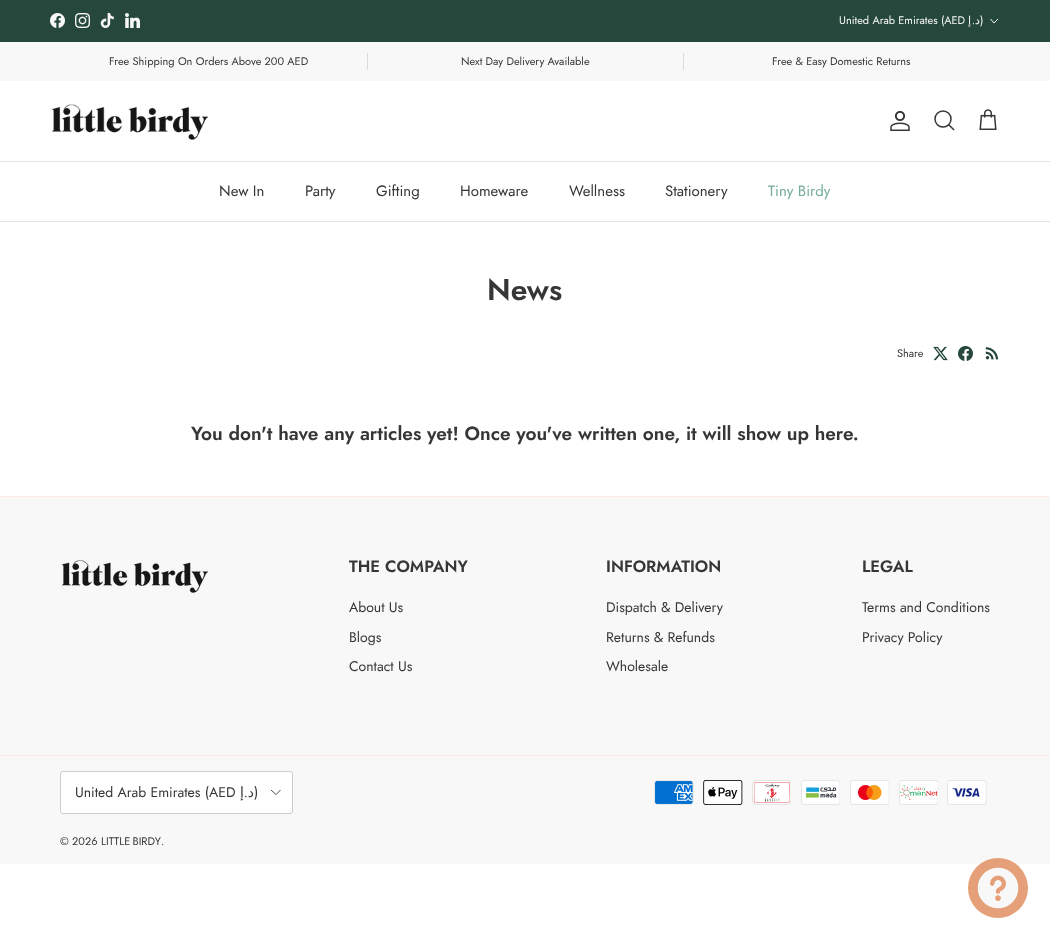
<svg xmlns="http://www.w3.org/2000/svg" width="1050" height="939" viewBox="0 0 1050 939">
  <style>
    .t1 { font: 11px Jost; fill: #f8f8f8; }
    .t2 { font: 11px DejaVu Sans; direction: rtl; fill: #f8f8f8; }
    .t3 { font: 11px Jost; direction: rtl; fill: #f8f8f8; }
    .t4 { font: 11px Jost; fill: #363636; }
    .t5 { font: 15px Jost; fill: #363636; }
    .t6 { font: 15px Jost; fill: #72ac96; }
    .t7 { font: 600 30px Jost; fill: #363636; }
    .t8 { font: 600 19.1px Jost; fill: #363636; }
    .t9 { font: 600 16.5px Jost; fill: #363636; }
    .t10 { font: 14px Jost; fill: #363636; }
    .t11 { font: 14px DejaVu Sans; direction: rtl; fill: #363636; }
    .t12 { font: 14px Jost; direction: rtl; fill: #363636; }
  </style>
  <rect width="100%" height="100%" fill="#fff"/>
  <rect x="0" y="0" width="1050" height="42" fill="#26483c"/>
  <image x="50" y="13" width="15" height="15" href="images/1.png"/>
  <image x="75" y="13" width="15" height="15" href="images/2.png"/>
  <image x="100" y="13" width="14" height="15" href="images/3.png"/>
  <image x="125" y="13" width="15" height="15" href="images/4.png"/>
  <text x="839" y="24" class="t1">United Arab Emirates (AED</text>
  <text x="971" y="24" class="t2">إ</text>
  <text x="975" y="24" class="t3">.</text>
  <text x="980" y="24" class="t2">د</text>
  <text x="980" y="24" class="t1">)</text>
  <path d="M998 19L994 23L990.5 19" fill="none" stroke="#f8f8f8"/>
  <rect x="0" y="42" width="1050" height="39" fill="#f8f8f8"/>
  <text x="109" y="65" class="t4">Free Shipping On Orders Above 200 AED</text>
  <rect x="367" y="53" width="1" height="17" fill="#dbdbdb"/>
  <text x="461" y="65" class="t4">Next Day Delivery Available</text>
  <rect x="683" y="53" width="1" height="17" fill="#dbdbdb"/>
  <text x="772" y="65" class="t4">Free &amp; Easy Domestic Returns</text>
  <rect x="0" y="161" width="1050" height="1" fill="#dfe3e8"/>
  <image x="51" y="104" width="158" height="36" href="images/5.png"/>
  <image x="890" y="111" width="20" height="20" href="images/6.png"/>
  <circle cx="943" cy="119" r="8" fill="none" stroke="#363636" stroke-width="1.5"/>
  <path d="M949 125L953.5 129.5" fill="none" stroke="#363636" stroke-width="1.5" stroke-linecap="square"/>
  <image x="979" y="109" width="18" height="21" href="images/7.png"/>
  <rect x="0" y="221" width="1050" height="1" fill="#dfe3e8"/>
  <text x="219" y="196" class="t5">New In</text>
  <text x="305" y="196" class="t5">Party</text>
  <text x="376" y="196" class="t5">Gifting</text>
  <text x="460" y="196" class="t5">Homeware</text>
  <text x="569" y="196" class="t5">Wellness</text>
  <text x="665" y="196" class="t5">Stationery</text>
  <text x="768" y="196" class="t6">Tiny Birdy</text>
  <text x="487" y="300" class="t7">News</text>
  <text x="897" y="357" class="t4">Share</text>
  <image x="933" y="346" width="15" height="15" href="images/8.png"/>
  <image x="958" y="346" width="15" height="15" href="images/9.png"/>
  <image x="985" y="347" width="13" height="13" href="images/10.png"/>
  <text x="191" y="440" class="t8">You don't have any articles yet! Once you've written one, it will show up here.</text>
  <rect x="0" y="497" width="1050" height="367" fill="#f8f8f8"/>
  <rect x="0" y="496" width="1050" height="1" fill="#fbede6"/>
  <image x="61" y="559" width="148" height="34" href="images/11.png"/>
  <text x="349" y="572" class="t9">THE COMPANY</text>
  <text x="349" y="612" class="t10">About Us</text>
  <text x="349" y="642" class="t10">Blogs</text>
  <text x="349" y="671" class="t10">Contact Us</text>
  <text x="606" y="572" class="t9">INFORMATION</text>
  <text x="606" y="612" class="t10">Dispatch &amp; Delivery</text>
  <text x="606" y="642" class="t10">Returns &amp; Refunds</text>
  <text x="606" y="671" class="t10">Wholesale</text>
  <text x="862" y="572" class="t9">LEGAL</text>
  <text x="862" y="612" class="t10">Terms and Conditions</text>
  <text x="862" y="642" class="t10">Privacy Policy</text>
  <rect x="0" y="755" width="1050" height="1" fill="#fbede6"/>
  <rect x="60.5" y="771.5" width="232" height="42" rx="2.5" fill="#fff" stroke="#cdcdcd"/>
  <text x="75" y="797" class="t10">United Arab Emirates (AED</text>
  <text x="244" y="797" class="t11">إ</text>
  <text x="248" y="797" class="t12">.</text>
  <text x="254" y="797" class="t11">د</text>
  <text x="254" y="797" class="t10">)</text>
  <path d="M280.5 790L276 794.5L271 790" fill="none" stroke="#363636" stroke-width="0.9"/>
  <text x="60" y="845" class="t4">© 2026</text>
  <text x="101" y="845" word-spacing="-1" class="t4">LITTLE BIRDY</text>
  <text x="161" y="845" class="t4">.</text>
  <image x="654" y="780" width="40" height="25" href="images/12.png"/>
  <image x="703" y="780" width="40" height="25" href="images/13.png"/>
  <image x="752" y="780" width="39" height="25" href="images/14.png"/>
  <image x="801" y="780" width="39" height="25" href="images/15.png"/>
  <image x="850" y="780" width="39" height="25" href="images/16.png"/>
  <image x="899" y="780" width="39" height="25" href="images/17.png"/>
  <image x="947" y="780" width="40" height="25" href="images/18.png"/>
  <circle cx="998" cy="888" r="30" fill="#e59f79"/>
  <image x="977" y="867" width="42" height="42" href="images/19.png"/>
</svg>
